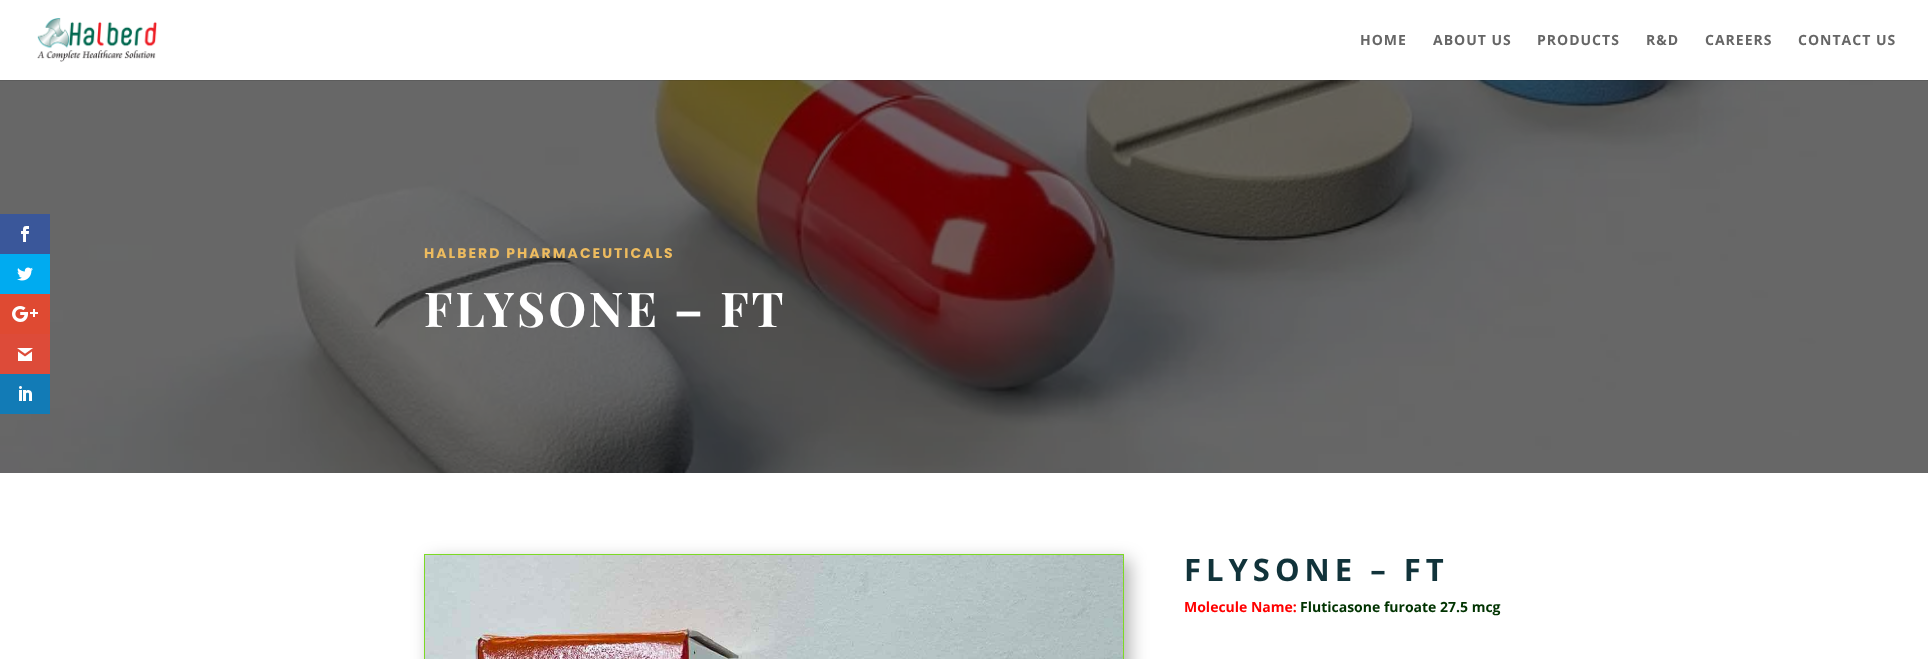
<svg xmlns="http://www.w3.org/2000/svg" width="1928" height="659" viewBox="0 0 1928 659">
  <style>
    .t1 { font: bold 14px Open Sans; letter-spacing: 1px; fill: #666; }
    .t2 { font: bold 14px Poppins; letter-spacing: 2px; fill: #edbb5f; }
    .t3 { font: bold 48px Playfair Display; letter-spacing: 3px; fill: #fff; }
    .t4 { font: bold 31px Open Sans; letter-spacing: 5px; fill: #11333a; }
    .t5 { font: bold 14px Open Sans; fill: #f00; }
    .t6 { font: bold 14px Open Sans; fill: #030; }
  </style>
  <rect width="100%" height="100%" fill="#fff"/>
  <image x="0" y="80" width="1928" height="393" href="images/7.png"/>
  <rect x="0" y="214" width="50" height="40" fill="#3a579a"/>
  <image x="21" y="226" width="8" height="16" href="images/1.png"/>
  <rect x="0" y="254" width="50" height="40" fill="#00abf0"/>
  <image x="17" y="267" width="16" height="14" href="images/2.png"/>
  <rect x="0" y="294" width="50" height="40" fill="#df4a32"/>
  <image x="12" y="306" width="26" height="16" href="images/3.png"/>
  <rect x="0" y="334" width="50" height="40" fill="#dd4b39"/>
  <image x="17" y="348" width="16" height="13" href="images/4.png"/>
  <rect x="0" y="374" width="50" height="40" fill="#127bb6"/>
  <image x="19" y="386" width="13" height="15" href="images/5.png"/>
  <rect x="0" y="80" width="1928" height="1" fill="#0000001a"/>
  <image x="37" y="18" width="120" height="44" href="images/6.png"/>
  <text x="1360" y="45" class="t1">HOME</text>
  <text x="1433" y="45" class="t1">ABOUT US</text>
  <text x="1537" y="45" class="t1">PRODUCTS</text>
  <text x="1646" y="45" class="t1">R&amp;D</text>
  <text x="1705" y="45" class="t1">CAREERS</text>
  <text x="1798" y="45" class="t1">CONTACT US</text>
  <text x="424" y="258" class="t2">HALBERD PHARMACEUTICALS</text>
  <text x="424" y="327" class="t3">FLYSONE – FT</text>
  <rect x="430" y="560" width="700" height="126" fill="#0000004d" filter="blur(9px)"/>
  <rect x="424.5" y="554.5" width="699" height="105" fill="none" stroke="#7cda24"/>
  <image x="425" y="555" width="698" height="104" href="images/8.png"/>
  <text x="1184" y="581" class="t4">FLYSONE – FT</text>
  <text x="1184" y="612" class="t5">Molecule Name:</text>
  <text x="1300" y="612" class="t6">Fluticasone furoate 27.5 mcg</text>
</svg>
